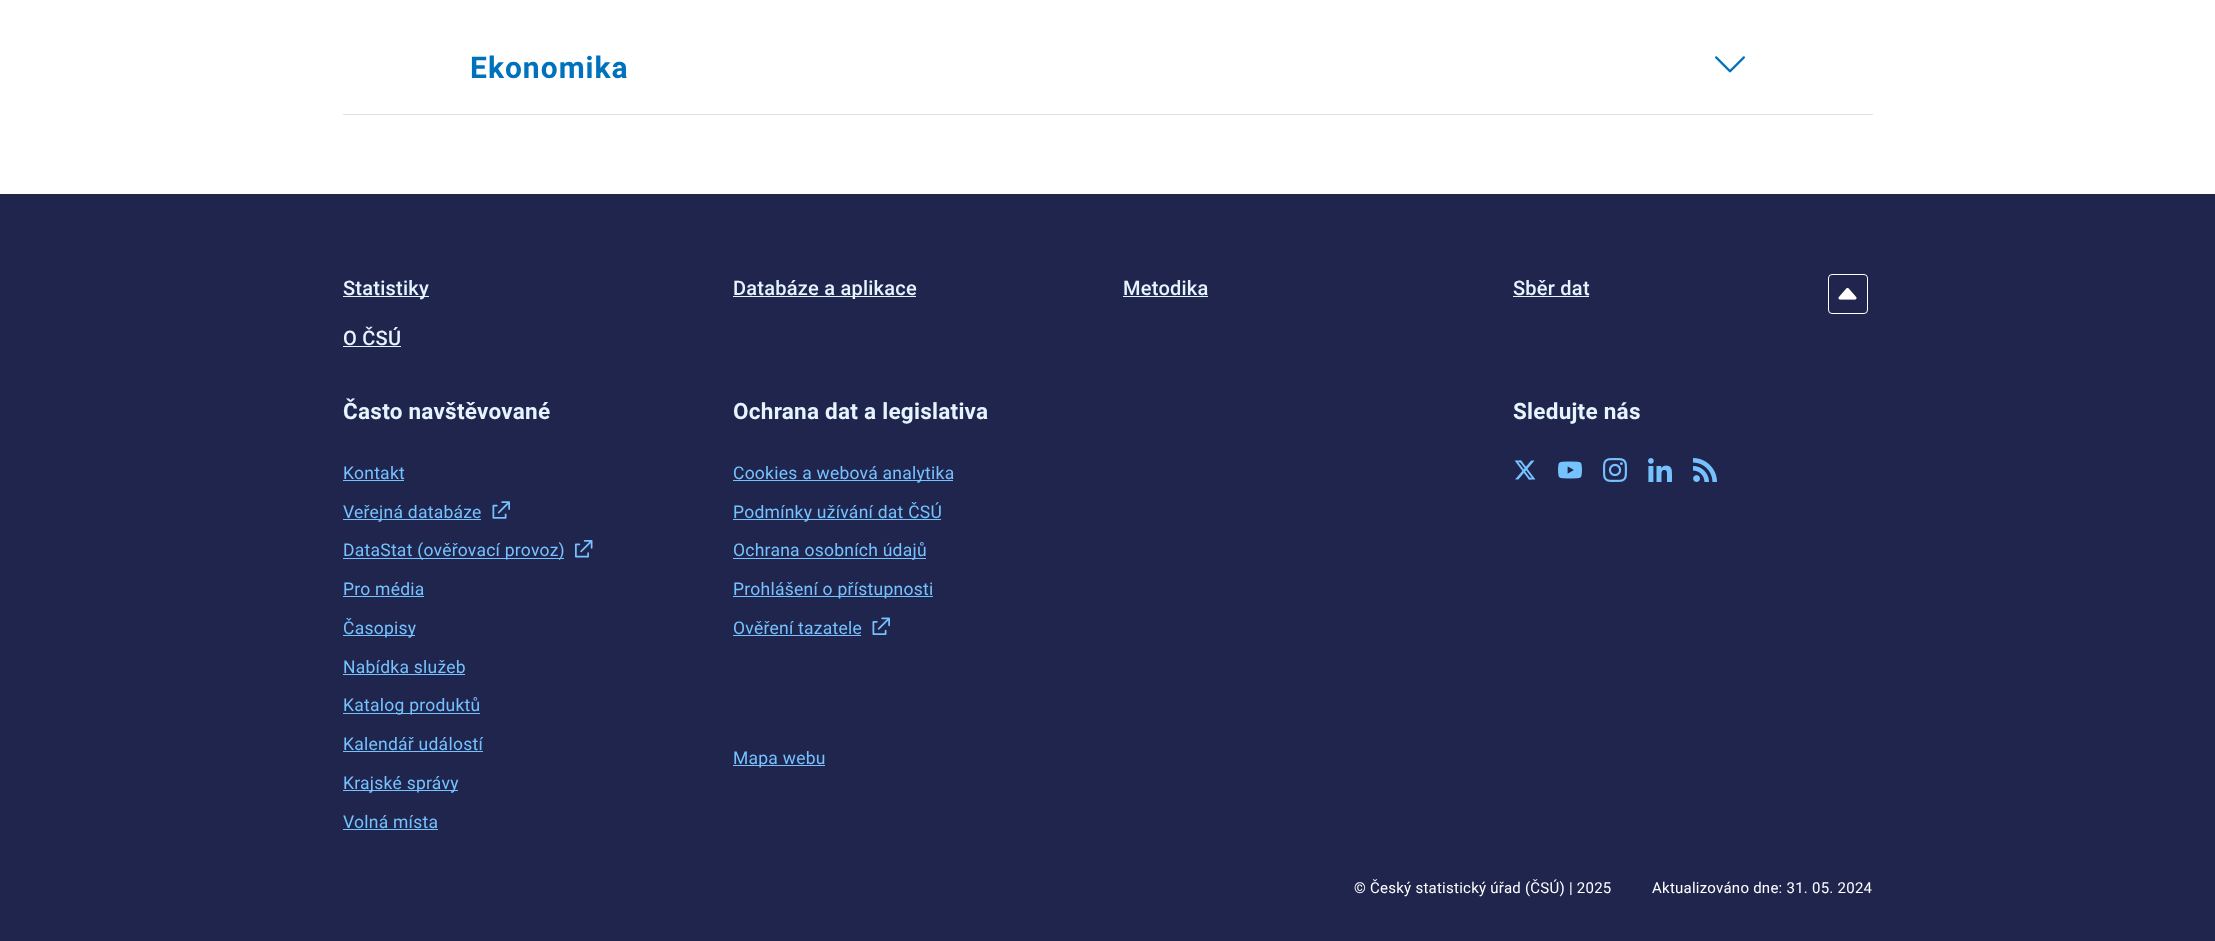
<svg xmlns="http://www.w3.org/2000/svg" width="2215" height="941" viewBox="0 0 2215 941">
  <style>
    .t1 { font: bold 30px Roboto; letter-spacing: 1px; fill: #0071bc; }
    .t2 { font: 500 20px Roboto; letter-spacing: 0.25px; fill: #e4f5ff; }
    .t3 { font: bold 22.5px Roboto; letter-spacing: 0.25px; fill: #e4f5ff; }
    .t4 { font: 17.5px Roboto; letter-spacing: 0.25px; fill: #75c2ff; }
    .t5 { font: 15px Roboto; letter-spacing: 0.25px; fill: #fff; }
  </style>
  <rect width="100%" height="100%" fill="#fff"/>
  <text x="470" y="78" class="t1">Ekonomika</text>
  <image x="1715" y="56" width="30" height="17" href="images/1.png"/>
  <rect x="343" y="114" width="1530" height="1" fill="#dde1ec"/>
  <rect x="0" y="194" width="2215" height="747" fill="#20254d"/>
  <rect x="1828.5" y="274.5" width="39" height="39" rx="3.5" fill="none" stroke="#fff"/>
  <image x="1838" y="287" width="19" height="13" href="images/2.png"/>
  <rect x="343" y="296" width="86" height="1" fill="#e4f5ff"/>
  <text x="343" y="295" class="t2">Statistiky</text>
  <rect x="733" y="296" width="183" height="1" fill="#e4f5ff"/>
  <text x="733" y="295" class="t2">Databáze a aplikace</text>
  <text x="1123" y="295" class="t2">Metodika</text>
  <rect x="1123" y="296" width="85" height="1" fill="#e4f5ff"/>
  <text x="1513" y="295" class="t2">Sběr dat</text>
  <rect x="1513" y="296" width="76" height="1" fill="#e4f5ff"/>
  <text x="343" y="345" class="t2">O ČSÚ</text>
  <rect x="343" y="346" width="58" height="1" fill="#e4f5ff"/>
  <text x="343" y="419" class="t3">Často navštěvované</text>
  <text x="343" y="479" class="t4">Kontakt</text>
  <rect x="343" y="480" width="61" height="1" fill="#75c2ff"/>
  <rect x="343" y="519" width="138" height="1" fill="#75c2ff"/>
  <text x="343" y="518" class="t4">Veřejná databáze</text>
  <image x="492" y="501" width="18" height="18" href="images/3.png"/>
  <rect x="343" y="558" width="221" height="1" fill="#75c2ff"/>
  <text x="343" y="556" class="t4">DataStat (ověřovací provoz)</text>
  <image x="575" y="540" width="18" height="18" href="images/4.png"/>
  <text x="343" y="595" class="t4">Pro média</text>
  <rect x="343" y="596" width="81" height="1" fill="#75c2ff"/>
  <rect x="343" y="635" width="72" height="1" fill="#75c2ff"/>
  <text x="343" y="634" class="t4">Časopisy</text>
  <text x="343" y="673" class="t4">Nabídka služeb</text>
  <rect x="343" y="674" width="122" height="1" fill="#75c2ff"/>
  <rect x="343" y="713" width="137" height="1" fill="#75c2ff"/>
  <text x="343" y="711" class="t4">Katalog produktů</text>
  <text x="343" y="750" class="t4">Kalendář událostí</text>
  <rect x="343" y="751" width="140" height="1" fill="#75c2ff"/>
  <rect x="343" y="790" width="115" height="1" fill="#75c2ff"/>
  <text x="343" y="789" class="t4">Krajské správy</text>
  <text x="343" y="828" class="t4">Volná místa</text>
  <rect x="343" y="829" width="95" height="1" fill="#75c2ff"/>
  <text x="733" y="419" class="t3">Ochrana dat a legislativa</text>
  <rect x="733" y="480" width="220" height="1" fill="#75c2ff"/>
  <text x="733" y="479" class="t4">Cookies a webová analytika</text>
  <rect x="733" y="519" width="208" height="1" fill="#75c2ff"/>
  <text x="733" y="518" class="t4">Podmínky užívání dat ČSÚ</text>
  <rect x="733" y="558" width="193" height="1" fill="#75c2ff"/>
  <text x="733" y="556" class="t4">Ochrana osobních údajů</text>
  <rect x="733" y="596" width="200" height="1" fill="#75c2ff"/>
  <text x="733" y="595" class="t4">Prohlášení o přístupnosti</text>
  <text x="733" y="634" class="t4">Ověření tazatele</text>
  <rect x="733" y="635" width="128" height="1" fill="#75c2ff"/>
  <image x="872" y="617" width="18" height="18" href="images/5.png"/>
  <rect x="733" y="765" width="92" height="1" fill="#75c2ff"/>
  <text x="733" y="764" class="t4">Mapa webu</text>
  <text x="1513" y="419" class="t3">Sledujte nás</text>
  <image x="1514" y="460" width="22" height="20" href="images/6.png"/>
  <image x="1558" y="461" width="24" height="18" href="images/7.png"/>
  <image x="1603" y="458" width="24" height="24" href="images/8.png"/>
  <image x="1648" y="458" width="24" height="24" href="images/9.png"/>
  <image x="1693" y="458" width="24" height="24" href="images/10.png"/>
  <text x="1354" y="893" class="t5">© Český statistický úřad (ČSÚ) | 2025</text>
  <text x="1652" y="893" class="t5">Aktualizováno dne: 31. 05. 2024</text>
</svg>
